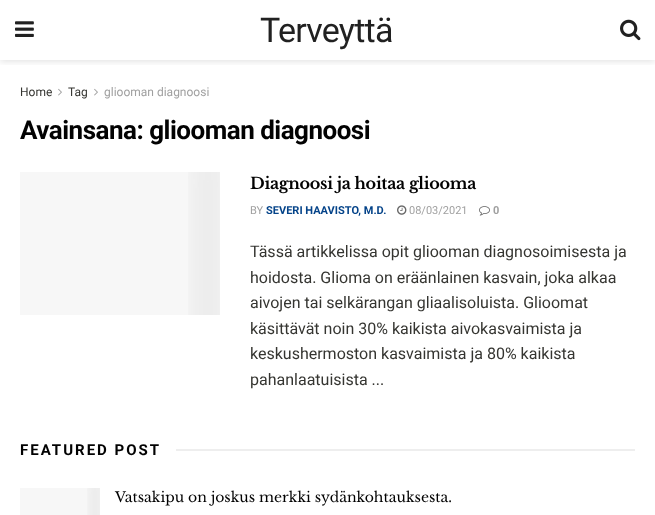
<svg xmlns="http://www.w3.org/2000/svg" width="655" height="515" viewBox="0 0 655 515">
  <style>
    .t1 { font: 34px Roboto; letter-spacing: -0.75px; fill: #212121; }
    .t2 { font: 12px Roboto; fill: #353531; }
    .t3 { font: 12px Roboto; fill: #a0a0a0; }
    .t4 { font: bold 26px Roboto; letter-spacing: -0.5px; fill: #020202; }
    .t5 { font: bold 16px Libre Baskerville; letter-spacing: -0.3px; fill: #020202; }
    .t6 { font: 11px Roboto; fill: #a0a0a0; }
    .t7 { font: bold 11px Roboto; fill: #044389; }
    .t8 { font: bold 11px Roboto; fill: #a0a0a0; }
    .t9 { font: 16px Roboto; fill: #353531; }
    .t10 { font: bold 15px Roboto; letter-spacing: 2px; fill: #020202; }
    .t11 { font: 14px Libre Baskerville; fill: #020202; }
  </style>
  <defs>
    <clipPath id="clip1"><rect x="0" y="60" width="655" height="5"/></clipPath>
  </defs>
  <rect width="100%" height="100%" fill="#fff"/>
  <g clip-path="url(#clip1)">
    <rect x="0" y="2" width="655" height="60" fill="#0000001a" filter="blur(3px)"/>
  </g>
  <image x="15" y="21" width="19" height="16" href="images/1.png"/>
  <text x="260" y="42" class="t1">Terveyttä</text>
  <image x="620" y="19" width="21" height="22" href="images/2.png"/>
  <text x="20" y="96" class="t2">Home</text>
  <image x="58" y="88" width="4" height="8" href="images/3.png"/>
  <text x="68" y="96" class="t2">Tag</text>
  <image x="94" y="88" width="4" height="8" href="images/3.png"/>
  <text x="104" y="96" class="t3">gliooman diagnoosi</text>
  <text x="20" y="139" class="t4">Avainsana: gliooman diagnoosi</text>
  <rect x="20" y="172" width="168" height="143" fill="#f7f7f7"/>
  <image x="188" y="172" width="32" height="143" href="images/4.png"/>
  <text x="250" y="189" class="t5">Diagnoosi ja hoitaa gliooma</text>
  <text x="250" y="214" class="t6">BY</text>
  <text x="266" y="214" class="t7">SEVERI HAAVISTO, M.D.</text>
  <image x="397" y="205" width="10" height="10" href="images/5.png"/>
  <text x="409" y="214" class="t6">08/03/2021</text>
  <image x="479" y="206" width="11" height="10" href="images/6.png"/>
  <text x="493" y="214" class="t8">0</text>
  <text x="250" y="257" class="t9">Tässä artikkelissa opit gliooman diagnosoimisesta ja</text>
  <text x="250" y="283" class="t9">hoidosta. Glioma on eräänlainen kasvain, joka alkaa</text>
  <text x="250" y="308" class="t9">aivojen tai selkärangan gliaalisoluista. Glioomat</text>
  <text x="250" y="334" class="t9">käsittävät noin 30% kaikista aivokasvaimista ja</text>
  <text x="250" y="359" class="t9">keskushermoston kasvaimista ja 80% kaikista</text>
  <text x="250" y="385" class="t9">pahanlaatuisista ...</text>
  <text x="20" y="455" class="t10">FEATURED POST</text>
  <rect x="176" y="449" width="459" height="2" fill="#eee"/>
  <rect x="20" y="488" width="67" height="27" fill="#f7f7f7"/>
  <image x="87" y="488" width="13" height="27" href="images/7.png"/>
  <text x="115" y="502" class="t11">Vatsakipu on joskus merkki sydänkohtauksesta.</text>
</svg>
